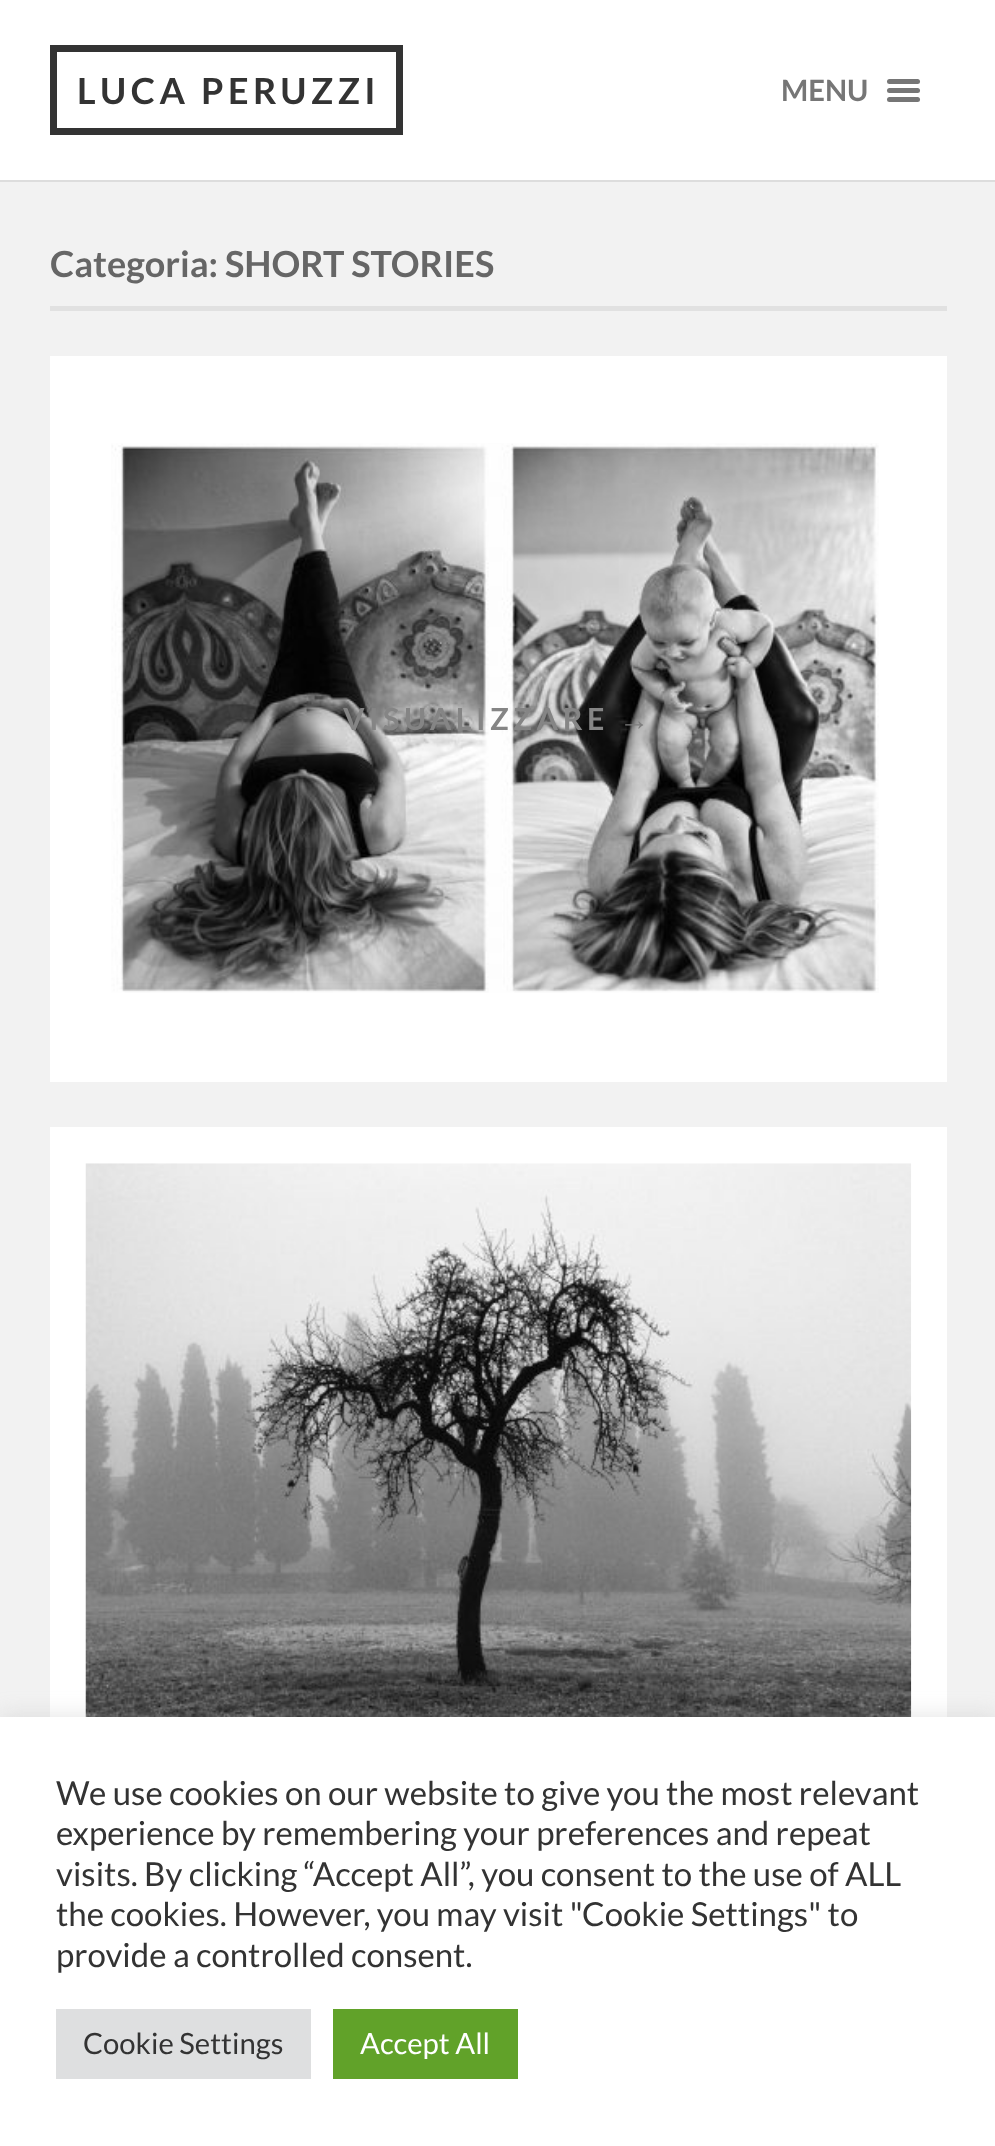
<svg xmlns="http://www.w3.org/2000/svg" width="995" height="2146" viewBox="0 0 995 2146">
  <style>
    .t1 { font: bold 36px Lato; letter-spacing: 4.5px; fill: #333; }
    .t2 { font: bold 29.25px Lato; fill: #767676; }
    .t3 { font: bold 36px Lato; fill: #666; }
    .t4 { font: bold 30.4px Lato; letter-spacing: 4.5px; fill: #858585; }
    .t5 { font: bold 30.4px Liberation Sans; letter-spacing: 4.5px; fill: #7e7e7e; }
    .t6 { font: 33px Lato; fill: #333; }
    .t7 { font: 29.25px Lato; fill: #333; }
    .t8 { font: 29.25px Lato; fill: #fff; }
  </style>
  <rect width="100%" height="100%" fill="#f2f2f2"/>
  <rect x="0" y="0" width="995" height="180" fill="#fff"/>
  <rect x="0" y="180" width="995" height="2" fill="#ddd"/>
  <rect x="53.5" y="48.5" width="346" height="83" fill="none" stroke="#333" stroke-width="7"/>
  <text x="77" y="104" class="t1">LUCA PERUZZI</text>
  <text x="781" y="101" class="t2">MENU</text>
  <rect x="887" y="79" width="33" height="5" rx="2.5" fill="#767676"/>
  <rect x="887" y="88" width="33" height="5" rx="2.5" fill="#767676"/>
  <rect x="887" y="97" width="33" height="5" rx="2.5" fill="#767676"/>
  <rect x="50" y="306" width="897" height="5" fill="#e1e1e1"/>
  <text x="50" y="277" class="t3">Categoria: SHORT STORIES</text>
  <rect x="50" y="356" width="897" height="726" fill="#fff"/>
  <image x="111" y="443" width="768" height="550" href="images/1.png"/>
  <text x="343" y="730" class="t4">VISUALIZZARE</text>
  <text x="619" y="730" class="t5">→</text>
  <rect x="50" y="1127" width="897" height="590" fill="#fff"/>
  <image x="85" y="1163" width="827" height="554" href="images/2.png"/>
  <rect x="0" y="1715" width="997" height="429" fill="#acabab4d" filter="blur(11px)"/>
  <rect x="0" y="1717" width="995" height="429" fill="#fff"/>
  <text x="56" y="1805" class="t6">We use cookies on our website to give you the most relevant</text>
  <text x="56" y="1845" class="t6">experience by remembering your preferences and repeat</text>
  <text x="56" y="1886" class="t6">visits. By clicking “Accept All”, you consent to the use of ALL</text>
  <text x="56" y="1926" class="t6">the cookies. However, you may visit "Cookie Settings" to</text>
  <text x="56" y="1967" class="t6">provide a controlled consent.</text>
  <rect x="56" y="2009" width="255" height="70" fill="#dedfe0"/>
  <text x="83" y="2054" class="t7">Cookie Settings</text>
  <rect x="333" y="2009" width="185" height="70" fill="#61a229"/>
  <text x="360" y="2054" class="t8">Accept All</text>
</svg>
